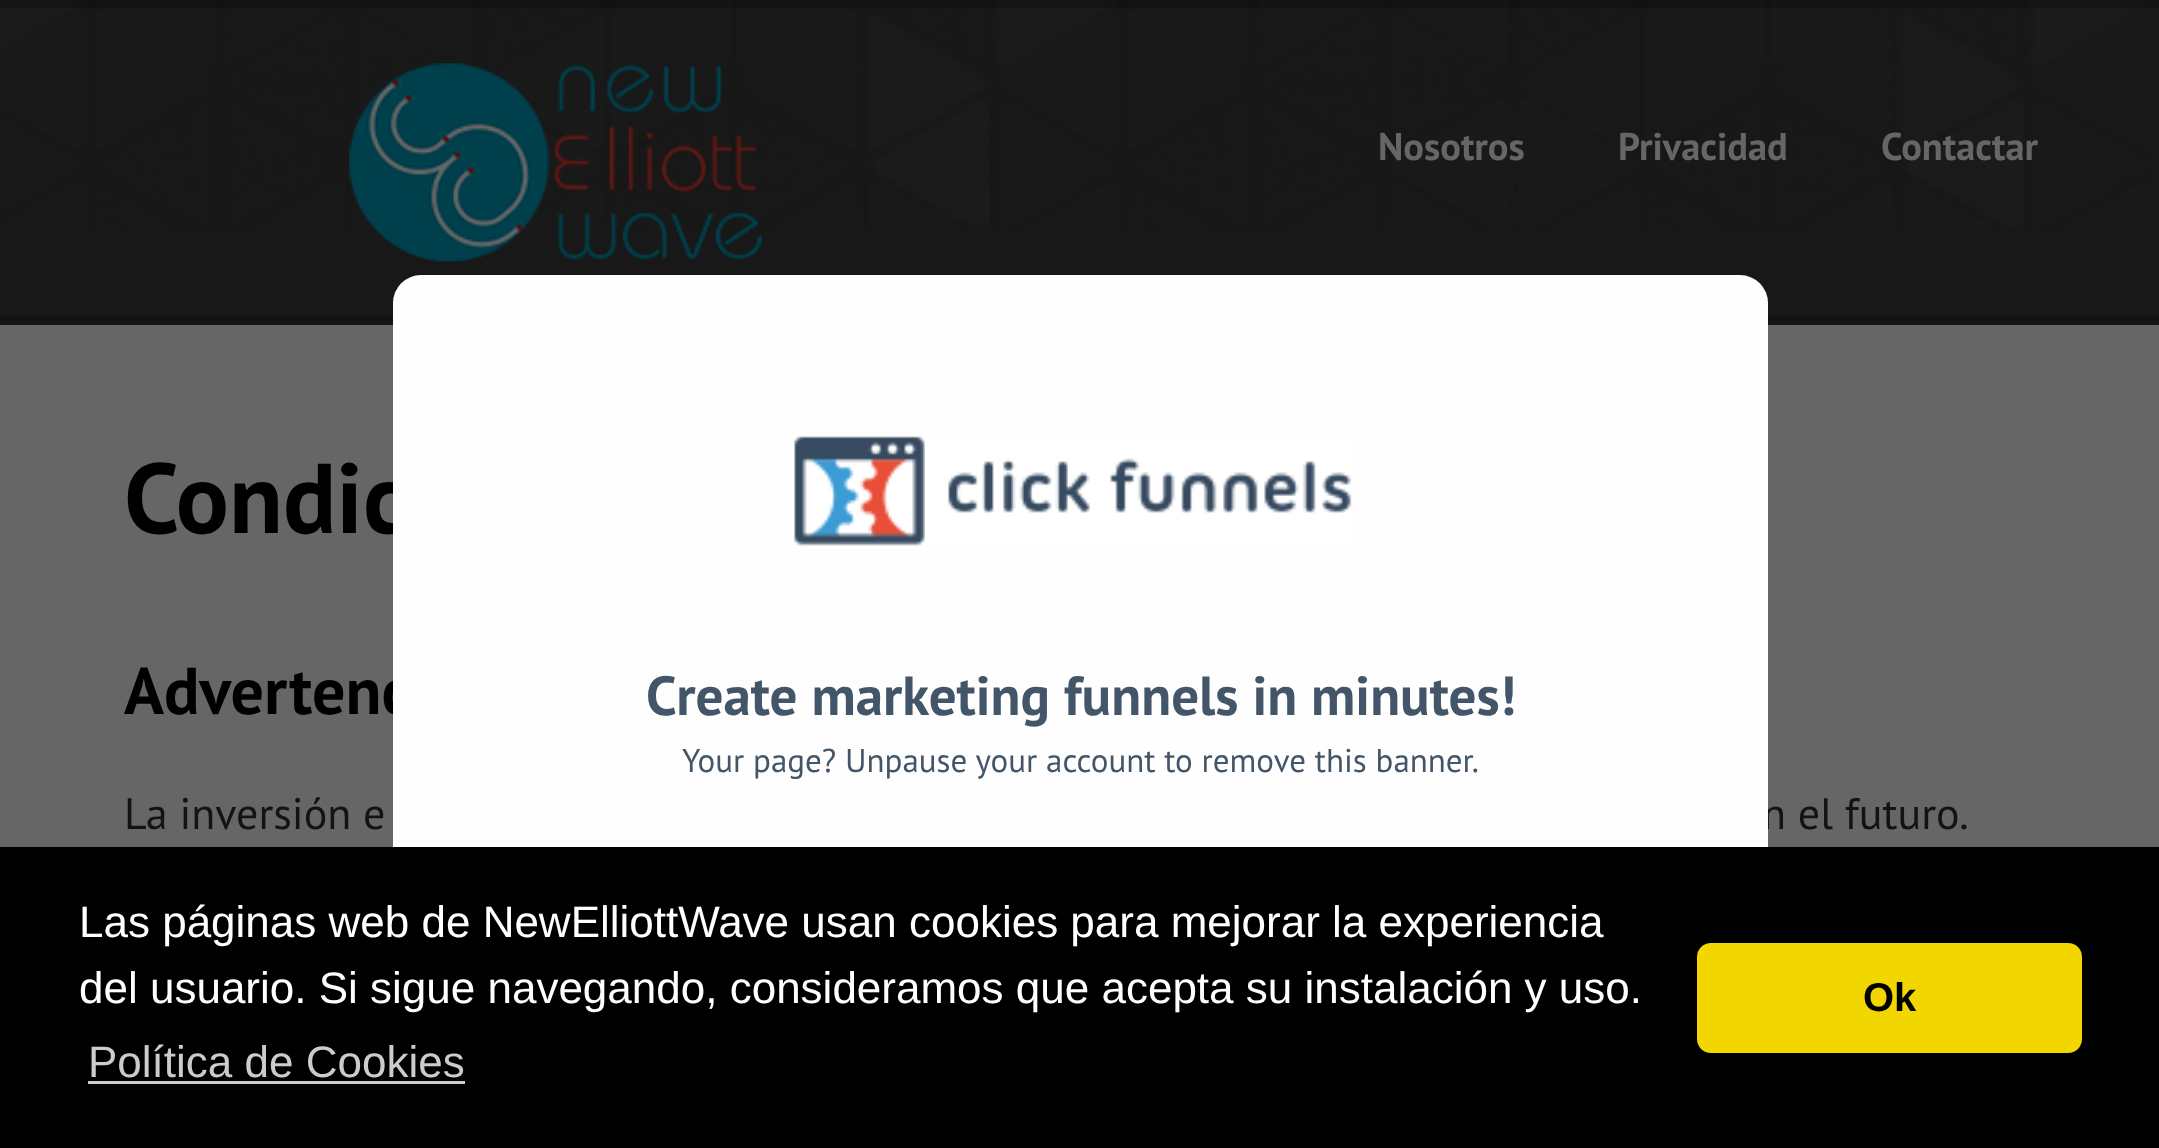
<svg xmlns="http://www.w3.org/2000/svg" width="2159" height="1148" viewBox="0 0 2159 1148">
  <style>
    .t1 { font: bold 38.5px PT Sans; fill: #666; }
    .t2 { font: bold 99px PT Sans; fill: #000; }
    .t3 { font: bold 66px PT Sans; fill: #000; }
    .t4 { font: 44px PT Sans; fill: #131313; }
    .t5 { font: bold 55px PT Sans; fill: #435569; }
    .t6 { font: 33px PT Sans; fill: #435569; }
    .t7 { font: 44px Liberation Sans; fill: #fff; }
    .t8 { font: 44px Liberation Sans; fill: #ccc; }
    .t9 { font: bold 40px Liberation Sans; fill: #000; }
  </style>
  <rect width="100%" height="100%" fill="#181818"/>
  <image x="0" y="0" width="2150" height="230" href="images/1.png"/>
  <rect x="0" y="0" width="2159" height="8" fill="#00000033"/>
  <rect x="0" y="316" width="2159" height="8" fill="#131313"/>
  <image x="349" y="63" width="413" height="199" href="images/2.png"/>
  <text x="1378" y="160" class="t1">Nosotros</text>
  <text x="1618" y="160" class="t1">Privacidad</text>
  <text x="1881" y="160" class="t1">Contactar</text>
  <rect x="0" y="325" width="2159" height="522" fill="#666"/>
  <text x="124" y="533" class="t2">Condic</text>
  <text x="124" y="714" class="t3">Advertenc</text>
  <text x="124" y="829" class="t4">La inversión e</text>
  <text x="1762" y="829" class="t4">n el futuro.</text>
  <rect x="393" y="275" width="1375" height="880" rx="28" fill="#fefefe"/>
  <image x="794" y="436" width="558" height="110" href="images/3.png"/>
  <text x="646" y="715" class="t5">Create marketing funnels in minutes!</text>
  <text x="682" y="772" class="t6">Your page? Unpause your account to remove this banner.</text>
  <rect x="0" y="847" width="2159" height="301" fill="#000"/>
  <text x="79" y="937" class="t7">Las páginas web de NewElliottWave usan cookies para mejorar la experiencia</text>
  <text x="79" y="1003" class="t7">del usuario. Si sigue navegando, consideramos que acepta su instalación y uso.</text>
  <text x="88" y="1077" class="t8">Política de Cookies</text>
  <rect x="88" y="1081" width="377" height="3" fill="#ccc"/>
  <rect x="1697" y="943" width="385" height="110" rx="14" fill="#f1d600"/>
  <text x="1863" y="1011" class="t9">Ok</text>
</svg>
